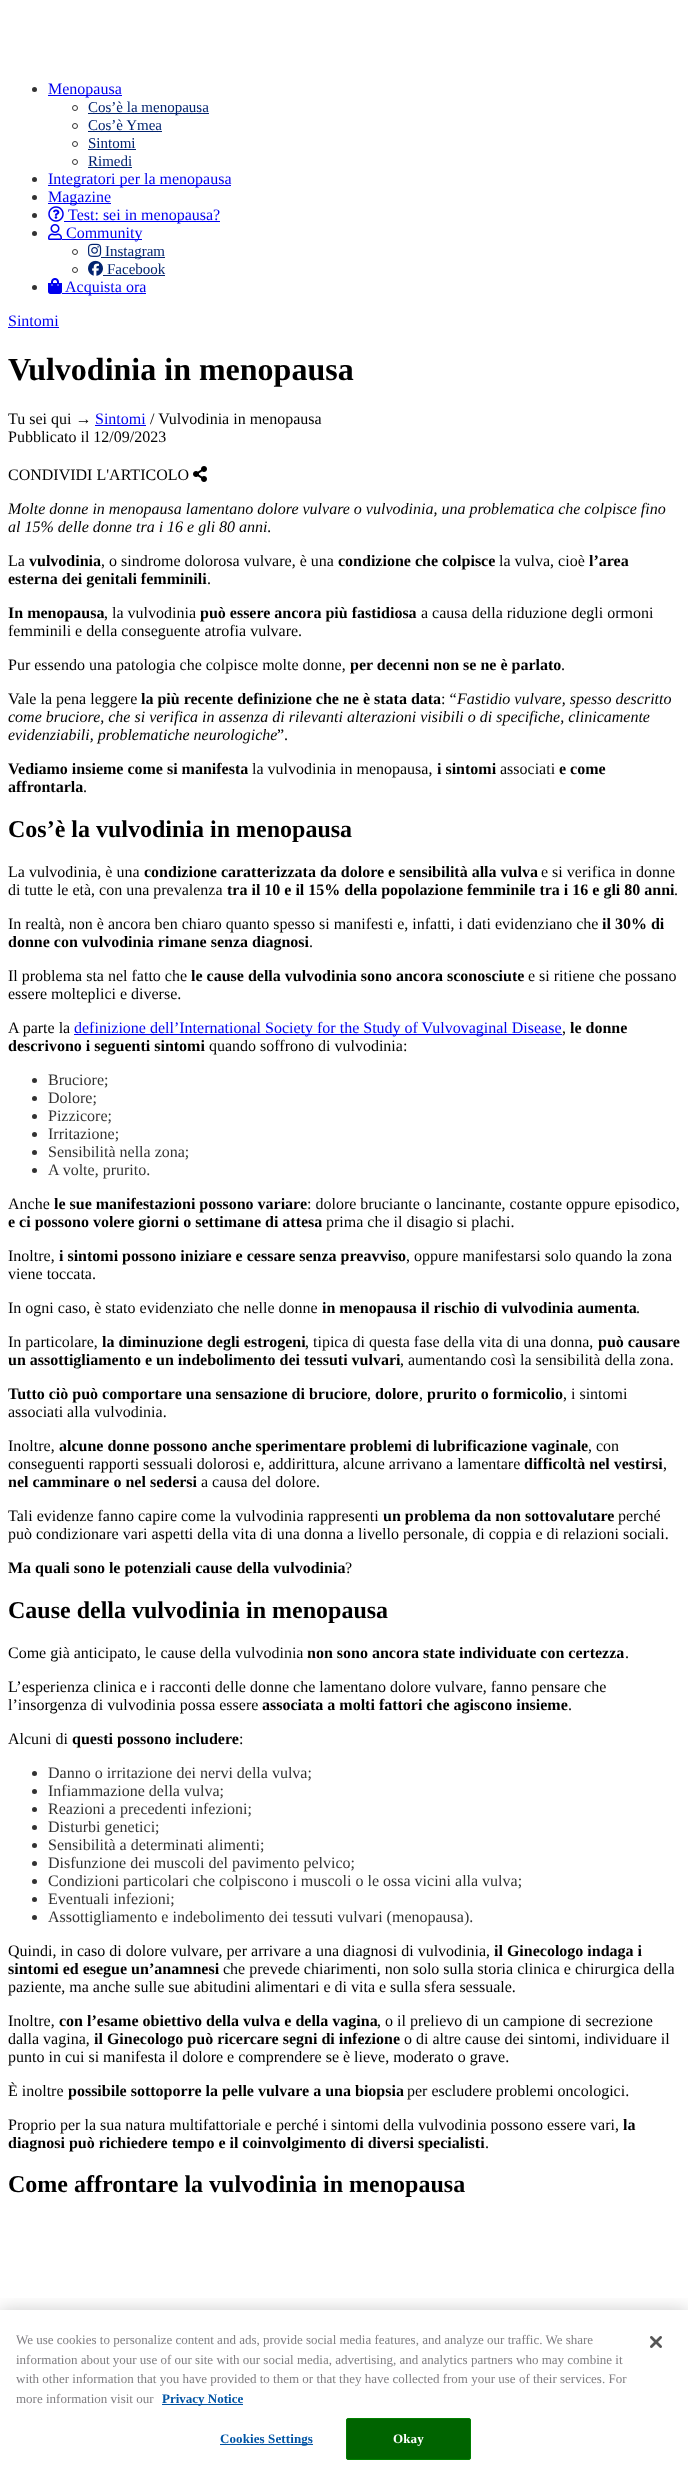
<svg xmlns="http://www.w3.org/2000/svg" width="688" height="2476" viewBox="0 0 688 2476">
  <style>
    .t1 { font: 16px Liberation Serif; fill: #00e; }
    .t2 { font: 15px Liberation Serif; fill: #02236f; }
    .t3 { font: bold 32px Liberation Serif; fill: #000; }
    .t4 { font: 16px Liberation Serif; fill: #000; }
    .t5 { font: italic 16px Liberation Serif; fill: #000; }
    .t6 { font: bold 16px Liberation Serif; fill: #000; }
    .t7 { font: bold 24px Liberation Serif; fill: #000; }
    .t8 { font: 16px Liberation Serif; fill: #333; }
    .t9 { font: 13px Liberation Serif; fill: #807f83; }
    .t10 { font: bold 13px Liberation Serif; fill: #0054a4; }
    .t11 { font: bold 13px Liberation Serif; letter-spacing: 0.1px; fill: #0054a4; }
    .t12 { font: bold 13px Liberation Serif; letter-spacing: 0.1px; fill: #fff; }
  </style>
  <defs>
    <clipPath id="clip1"><rect x="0" y="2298" width="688" height="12"/></clipPath>
  </defs>
  <rect width="100%" height="100%" fill="#fff"/>
  <circle cx="34.5" cy="89.5" r="2.5" fill="#333"/>
  <rect x="48" y="95" width="74" height="1" fill="#00e"/>
  <text x="48" y="94" class="t1">Menopausa</text>
  <circle cx="75" cy="108" r="2.5" fill="none" stroke="#333"/>
  <rect x="88" y="113" width="121" height="1" fill="#02236f"/>
  <text x="88" y="112" class="t2">Cos’è la menopausa</text>
  <circle cx="75" cy="126" r="2.5" fill="none" stroke="#333"/>
  <text x="88" y="130" class="t2">Cos’è Ymea</text>
  <rect x="88" y="131" width="74" height="1" fill="#02236f"/>
  <circle cx="75" cy="144" r="2.5" fill="none" stroke="#333"/>
  <text x="88" y="148" class="t2">Sintomi</text>
  <rect x="88" y="149" width="48" height="1" fill="#02236f"/>
  <circle cx="75" cy="162" r="2.5" fill="none" stroke="#333"/>
  <text x="88" y="166" class="t2">Rimedi</text>
  <rect x="88" y="167" width="44" height="1" fill="#02236f"/>
  <circle cx="34.5" cy="179.5" r="2.5" fill="#333"/>
  <rect x="48" y="185" width="183" height="1" fill="#00e"/>
  <text x="48" y="184" class="t1">Integratori per la menopausa</text>
  <circle cx="34.5" cy="197.5" r="2.5" fill="#333"/>
  <rect x="48" y="203" width="63" height="1" fill="#00e"/>
  <text x="48" y="202" class="t1">Magazine</text>
  <circle cx="34.5" cy="215.5" r="2.5" fill="#333"/>
  <image x="48" y="206" width="16" height="16" href="images/1.png"/>
  <rect x="64" y="221" width="156" height="1" fill="#00e"/>
  <text x="68" y="220" class="t1">Test: sei in menopausa?</text>
  <circle cx="34.5" cy="233.5" r="2.5" fill="#333"/>
  <image x="48" y="224" width="14" height="16" href="images/2.png"/>
  <rect x="62" y="239" width="80" height="1" fill="#00e"/>
  <text x="66" y="238" class="t1">Community</text>
  <circle cx="75" cy="252" r="2.5" fill="none" stroke="#333"/>
  <image x="88" y="243" width="14" height="14" href="images/3.png"/>
  <rect x="101" y="257" width="64" height="1" fill="#02236f"/>
  <text x="105" y="256" class="t2">Instagram</text>
  <circle cx="75" cy="270" r="2.5" fill="none" stroke="#333"/>
  <image x="88" y="260" width="15" height="16" href="images/4.png"/>
  <text x="107" y="274" class="t2">Facebook</text>
  <rect x="103" y="275" width="62" height="1" fill="#02236f"/>
  <circle cx="34.5" cy="287.5" r="2.5" fill="#333"/>
  <image x="48" y="278" width="14" height="16" href="images/5.png"/>
  <rect x="62" y="293" width="84" height="1" fill="#00e"/>
  <text x="65" y="292" class="t1">Acquista ora</text>
  <text x="8" y="326" class="t1">Sintomi</text>
  <rect x="8" y="327" width="51" height="1" fill="#00e"/>
  <text x="8" y="380" class="t3">Vulvodinia in menopausa</text>
  <text x="8" y="424" class="t4">Tu sei qui →</text>
  <text x="95" y="424" class="t1">Sintomi</text>
  <rect x="95" y="425" width="51" height="1" fill="#00e"/>
  <text x="150" y="424" class="t4">/ Vulvodinia in menopausa</text>
  <text x="8" y="442" class="t4">Pubblicato il 12/09/2023</text>
  <text x="8" y="480" class="t4">CONDIVIDI L'ARTICOLO</text>
  <image x="193" y="466" width="14" height="16" href="images/6.png"/>
  <text x="8" y="514" class="t5">Molte donne in menopausa lamentano dolore vulvare o vulvodinia, una problematica che colpisce fino</text>
  <text x="8" y="532" class="t5">al 15% delle donne tra i 16 e gli 80 anni.</text>
  <text x="8" y="566" class="t4">La</text>
  <text x="29" y="566" class="t6">vulvodinia</text>
  <text x="101" y="566" class="t4">, o sindrome dolorosa vulvare, è una</text>
  <text x="338" y="566" class="t6">condizione che colpisce</text>
  <text x="499" y="566" class="t4">la vulva, cioè</text>
  <text x="589" y="566" class="t6">l’area</text>
  <text x="8" y="584" class="t6">esterna dei genitali femminili</text>
  <text x="207" y="584" class="t4">.</text>
  <text x="8" y="618" class="t6">In menopausa</text>
  <text x="104" y="618" class="t4">, la vulvodinia</text>
  <text x="200" y="618" class="t6">può essere ancora più fastidiosa</text>
  <text x="421" y="618" class="t4">a causa della riduzione degli ormoni</text>
  <text x="8" y="636" class="t4">femminili e della conseguente atrofia vulvare.</text>
  <text x="8" y="670" class="t4">Pur essendo una patologia che colpisce molte donne,</text>
  <text x="350" y="670" class="t6">per decenni non se ne è parlato</text>
  <text x="561" y="670" class="t4">.</text>
  <text x="8" y="704" class="t4">Vale la pena leggere</text>
  <text x="141" y="704" class="t6">la più recente definizione che ne è stata data</text>
  <text x="441" y="704" class="t4">: “</text>
  <text x="457" y="704" class="t5">Fastidio vulvare, spesso descritto</text>
  <text x="8" y="722" class="t5">come bruciore, che si verifica in assenza di rilevanti alterazioni visibili o di specifiche, clinicamente</text>
  <text x="8" y="740" class="t5">evidenziabili, problematiche neurologiche</text>
  <text x="277" y="740" class="t4">”.</text>
  <text x="8" y="774" class="t6">Vediamo insieme come si manifesta</text>
  <text x="252" y="774" class="t4">la vulvodinia in menopausa,</text>
  <text x="437" y="774" class="t6">i sintomi</text>
  <text x="500" y="774" class="t4">associati</text>
  <text x="559" y="774" class="t6">e come</text>
  <text x="8" y="792" class="t6">affrontarla</text>
  <text x="83" y="792" class="t4">.</text>
  <text x="8" y="837" class="t7">Cos’è la vulvodinia in menopausa</text>
  <text x="8" y="877" class="t4">La vulvodinia, è una</text>
  <text x="144" y="877" class="t6">condizione caratterizzata da dolore e sensibilità alla vulva</text>
  <text x="541" y="877" class="t4">e si verifica in donne</text>
  <text x="8" y="895" class="t4">di tutte le età, con una prevalenza</text>
  <text x="227" y="895" class="t6">tra il 10 e il 15% della popolazione femminile tra i 16 e gli 80 anni</text>
  <text x="674" y="895" class="t4">.</text>
  <text x="8" y="929" class="t4">In realtà, non è ancora ben chiaro quanto spesso si manifesti e, infatti, i dati evidenziano che</text>
  <text x="602" y="929" class="t6">il 30% di</text>
  <text x="8" y="947" class="t6">donne con vulvodinia rimane senza diagnosi</text>
  <text x="309" y="947" class="t4">.</text>
  <text x="8" y="981" class="t4">Il problema sta nel fatto che</text>
  <text x="191" y="981" class="t6">le cause della vulvodinia sono ancora sconosciute</text>
  <text x="528" y="981" class="t4">e si ritiene che possano</text>
  <text x="8" y="999" class="t4">essere molteplici e diverse.</text>
  <text x="8" y="1033" class="t4">A parte la</text>
  <rect x="74" y="1034" width="488" height="1" fill="#00e"/>
  <text x="74" y="1033" class="t1">definizione dell’International Society for the Study of Vulvovaginal Disease</text>
  <text x="562" y="1033" class="t4">,</text>
  <text x="570" y="1033" class="t6">le donne</text>
  <text x="8" y="1051" class="t6">descrivono i seguenti sintomi</text>
  <text x="209" y="1051" class="t4">quando soffrono di vulvodinia:</text>
  <circle cx="34.5" cy="1080.5" r="2.5" fill="#333"/>
  <text x="48" y="1085" class="t8">Bruciore;</text>
  <circle cx="34.5" cy="1098.5" r="2.5" fill="#333"/>
  <text x="48" y="1103" class="t8">Dolore;</text>
  <circle cx="34.5" cy="1116.5" r="2.5" fill="#333"/>
  <text x="48" y="1121" class="t8">Pizzicore;</text>
  <circle cx="34.5" cy="1134.5" r="2.5" fill="#333"/>
  <text x="48" y="1139" class="t8">Irritazione;</text>
  <circle cx="34.5" cy="1152.5" r="2.5" fill="#333"/>
  <text x="48" y="1157" class="t8">Sensibilità nella zona;</text>
  <circle cx="34.5" cy="1170.5" r="2.5" fill="#333"/>
  <text x="48" y="1175" class="t8">A volte, prurito.</text>
  <text x="8" y="1209" class="t4">Anche</text>
  <text x="54" y="1209" class="t6">le sue manifestazioni possono variare</text>
  <text x="307" y="1209" class="t4">: dolore bruciante o lancinante, costante oppure episodico,</text>
  <text x="8" y="1227" class="t6">e ci possono volere giorni o settimane di attesa</text>
  <text x="326" y="1227" class="t4">prima che il disagio si plachi.</text>
  <text x="8" y="1261" class="t4">Inoltre,</text>
  <text x="59" y="1261" class="t6">i sintomi possono iniziare e cessare senza preavviso</text>
  <text x="406" y="1261" class="t4">, oppure manifestarsi solo quando la zona</text>
  <text x="8" y="1279" class="t4">viene toccata.</text>
  <text x="8" y="1313" class="t4">In ogni caso, è stato evidenziato che nelle donne</text>
  <text x="322" y="1313" class="t6">in menopausa il rischio di vulvodinia aumenta</text>
  <text x="636" y="1313" class="t4">.</text>
  <text x="8" y="1347" class="t4">In particolare,</text>
  <text x="102" y="1347" class="t6">la diminuzione degli estrogeni</text>
  <text x="305" y="1347" class="t4">, tipica di questa fase della vita di una donna,</text>
  <text x="598" y="1347" class="t6">può causare</text>
  <text x="8" y="1365" class="t6">un assottigliamento e un indebolimento dei tessuti vulvari</text>
  <text x="400" y="1365" class="t4">, aumentando così la sensibilità della zona.</text>
  <text x="8" y="1399" class="t6">Tutto ciò può comportare una sensazione di bruciore</text>
  <text x="367" y="1399" class="t4">,</text>
  <text x="375" y="1399" class="t6">dolore</text>
  <text x="419" y="1399" class="t4">,</text>
  <text x="427" y="1399" class="t6">prurito o formicolio</text>
  <text x="563" y="1399" class="t4">, i sintomi</text>
  <text x="8" y="1417" class="t4">associati alla vulvodinia.</text>
  <text x="8" y="1451" class="t4">Inoltre,</text>
  <text x="59" y="1451" class="t6">alcune donne possono anche sperimentare problemi di lubrificazione vaginale</text>
  <text x="588" y="1451" class="t4">, con</text>
  <text x="8" y="1469" class="t4">conseguenti rapporti sessuali dolorosi e, addirittura, alcune arrivano a lamentare</text>
  <text x="524" y="1469" class="t6">difficoltà nel vestirsi</text>
  <text x="663" y="1469" class="t4">,</text>
  <text x="8" y="1487" class="t6">nel camminare o nel sedersi</text>
  <text x="201" y="1487" class="t4">a causa del dolore.</text>
  <text x="8" y="1521" class="t4">Tali evidenze fanno capire come la vulvodinia rappresenti</text>
  <text x="383" y="1521" class="t6">un problema da non sottovalutare</text>
  <text x="618" y="1521" class="t4">perché</text>
  <text x="8" y="1539" class="t4">può condizionare vari aspetti della vita di una donna a livello personale, di coppia e di relazioni sociali.</text>
  <text x="8" y="1573" class="t6">Ma quali sono le potenziali cause della vulvodinia</text>
  <text x="345" y="1573" class="t4">?</text>
  <text x="8" y="1618" class="t7">Cause della vulvodinia in menopausa</text>
  <text x="8" y="1658" class="t4">Come già anticipato, le cause della vulvodinia</text>
  <text x="307" y="1658" class="t6">non sono ancora state individuate con certezza</text>
  <text x="625" y="1658" class="t4">.</text>
  <text x="8" y="1692" class="t4">L’esperienza clinica e i racconti delle donne che lamentano dolore vulvare, fanno pensare che</text>
  <text x="8" y="1710" class="t4">l’insorgenza di vulvodinia possa essere</text>
  <text x="262" y="1710" class="t6">associata a molti fattori che agiscono insieme</text>
  <text x="568" y="1710" class="t4">.</text>
  <text x="8" y="1744" class="t4">Alcuni di</text>
  <text x="72" y="1744" class="t6">questi possono includere</text>
  <text x="239" y="1744" class="t4">:</text>
  <circle cx="34.5" cy="1773.5" r="2.5" fill="#333"/>
  <text x="48" y="1778" class="t8">Danno o irritazione dei nervi della vulva;</text>
  <circle cx="34.5" cy="1791.5" r="2.5" fill="#333"/>
  <text x="48" y="1796" class="t8">Infiammazione della vulva;</text>
  <circle cx="34.5" cy="1809.5" r="2.5" fill="#333"/>
  <text x="48" y="1814" class="t8">Reazioni a precedenti infezioni;</text>
  <circle cx="34.5" cy="1827.5" r="2.5" fill="#333"/>
  <text x="48" y="1832" class="t8">Disturbi genetici;</text>
  <circle cx="34.5" cy="1845.5" r="2.5" fill="#333"/>
  <text x="48" y="1850" class="t8">Sensibilità a determinati alimenti;</text>
  <circle cx="34.5" cy="1863.5" r="2.5" fill="#333"/>
  <text x="48" y="1868" class="t8">Disfunzione dei muscoli del pavimento pelvico;</text>
  <circle cx="34.5" cy="1881.5" r="2.5" fill="#333"/>
  <text x="48" y="1886" class="t8">Condizioni particolari che colpiscono i muscoli o le ossa vicini alla vulva;</text>
  <circle cx="34.5" cy="1899.5" r="2.5" fill="#333"/>
  <text x="48" y="1904" class="t8">Eventuali infezioni;</text>
  <circle cx="34.5" cy="1917.5" r="2.5" fill="#333"/>
  <text x="48" y="1922" class="t8">Assottigliamento e indebolimento dei tessuti vulvari (menopausa).</text>
  <text x="8" y="1956" class="t4">Quindi, in caso di dolore vulvare, per arrivare a una diagnosi di vulvodinia,</text>
  <text x="494" y="1956" class="t6">il Ginecologo indaga i</text>
  <text x="8" y="1974" class="t6">sintomi ed esegue un’anamnesi</text>
  <text x="223" y="1974" class="t4">che prevede chiarimenti, non solo sulla storia clinica e chirurgica della</text>
  <text x="8" y="1992" class="t4">paziente, ma anche sulle sue abitudini alimentari e di vita e sulla sfera sessuale.</text>
  <text x="8" y="2026" class="t4">Inoltre,</text>
  <text x="59" y="2026" class="t6">con l’esame obiettivo della vulva e della vagina</text>
  <text x="377" y="2026" class="t4">, o il prelievo di un campione di secrezione</text>
  <text x="8" y="2044" class="t4">dalla vagina,</text>
  <text x="94" y="2044" class="t6">il Ginecologo può ricercare segni di infezione</text>
  <text x="404" y="2044" class="t4">o di altre cause dei sintomi, individuare il</text>
  <text x="8" y="2062" class="t4">punto in cui si manifesta il dolore e comprendere se è lieve, moderato o grave.</text>
  <text x="8" y="2096" class="t4">È inoltre</text>
  <text x="68" y="2096" class="t6">possibile sottoporre la pelle vulvare a una biopsia</text>
  <text x="407" y="2096" class="t4">per escludere problemi oncologici.</text>
  <text x="8" y="2130" class="t4">Proprio per la sua natura multifattoriale e perché i sintomi della vulvodinia possono essere vari,</text>
  <text x="623" y="2130" class="t6">la</text>
  <text x="8" y="2148" class="t6">diagnosi può richiedere tempo e il coinvolgimento di diversi specialisti</text>
  <text x="485" y="2148" class="t4">.</text>
  <text x="8" y="2192" class="t7">Come affrontare la vulvodinia in menopausa</text>
  <g clip-path="url(#clip1)">
    <rect x="0" y="2310" width="688" height="166" fill="#00000033" filter="blur(9px)"/>
  </g>
  <text x="16" y="2344" class="t9">We use cookies to personalize content and ads, provide social media features, and analyze our traffic. We share</text>
  <text x="16" y="2364" class="t9">information about your use of our site with our social media, advertising, and analytics partners who may combine it</text>
  <text x="16" y="2383" class="t9">with other information that you have provided to them or that they have collected from your use of their services. For</text>
  <text x="16" y="2403" class="t9">more information visit our</text>
  <rect x="162" y="2404" width="81" height="1" fill="#0054a4"/>
  <text x="162" y="2403" class="t10">Privacy Notice</text>
  <rect x="220" y="2444" width="93" height="1" fill="#0054a4"/>
  <text x="220" y="2443" class="t11">Cookies Settings</text>
  <rect x="346.5" y="2418.5" width="124" height="41" rx="1.5" fill="#006400" stroke="#008000"/>
  <text x="393" y="2443" class="t12">Okay</text>
  <image x="650" y="2336" width="12" height="12" href="images/7.png"/>
</svg>
